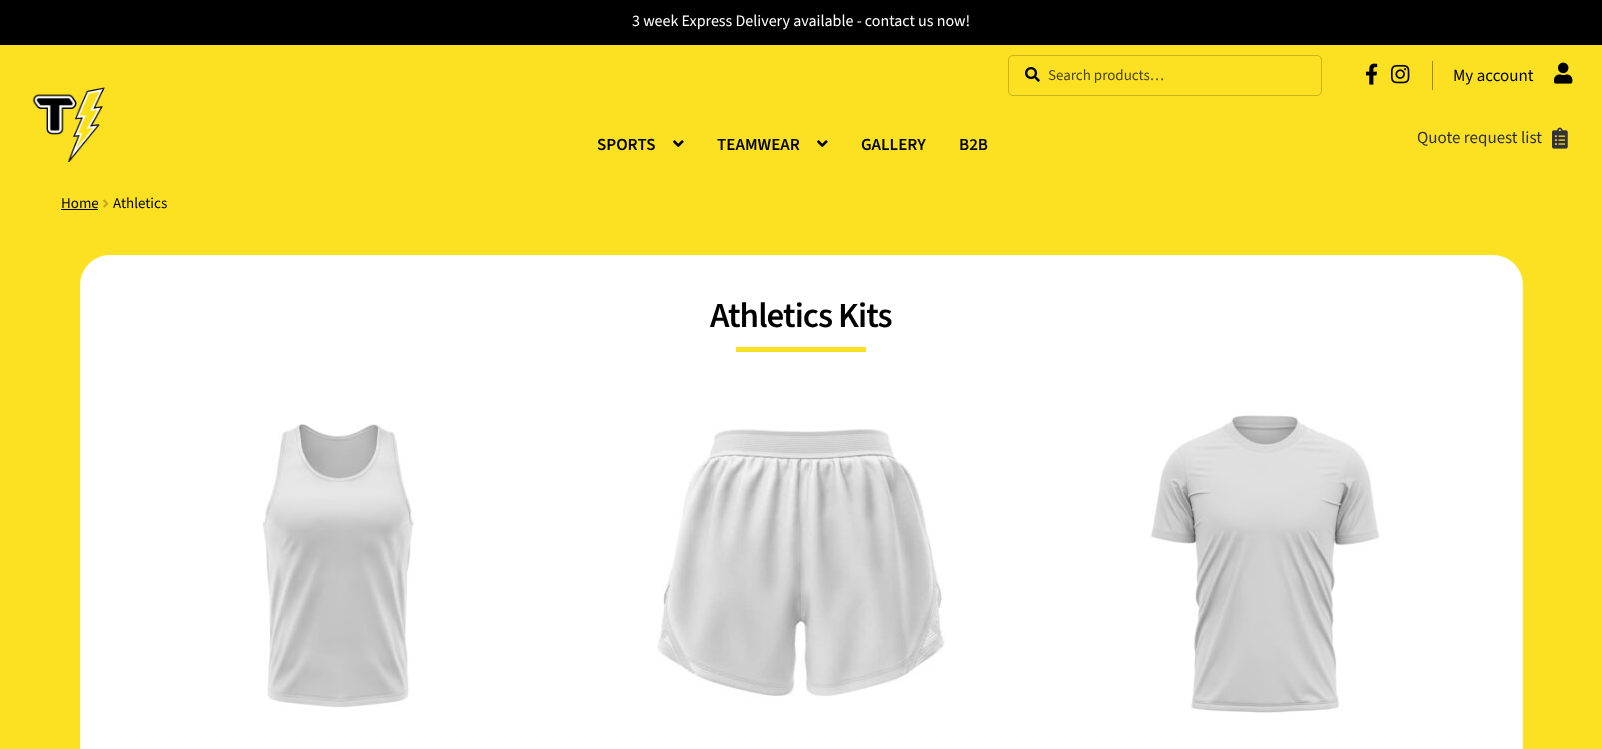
<svg xmlns="http://www.w3.org/2000/svg" width="1602" height="749" viewBox="0 0 1602 749">
  <style>
    .t1 { font: 16px 'Source Sans 3'; fill: #fff; }
    .t2 { font: 15px 'Source Sans 3'; fill: #4b440a; }
    .t3 { font: 17px 'Source Sans 3'; fill: #000; }
    .t4 { font: 600 17px 'Source Sans 3'; fill: #000; }
    .t5 { font: 17px 'Source Sans 3'; fill: #313139; }
    .t6 { font: 15px 'Source Sans 3'; fill: #000; }
    .t7 { font: 600 35px 'Source Sans 3'; letter-spacing: -1px; fill: #000; }
  </style>
  <rect width="100%" height="100%" fill="#000"/>
  <text x="632" y="26" class="t1">3 week Express Delivery available - contact us now!</text>
  <rect x="0" y="45" width="1602" height="704" fill="#fbe122"/>
  <rect x="1008.5" y="55.5" width="313" height="40" rx="4.5" fill="none" stroke="#c9b41b"/>
  <image x="1025" y="67" width="15" height="15" href="images/1.png"/>
  <text x="1048" y="80" class="t2">Search products…</text>
  <rect x="1432" y="61" width="1" height="29" fill="#978714"/>
  <image x="1365" y="63" width="13" height="22" href="images/2.png"/>
  <image x="1391" y="64" width="19" height="20" href="images/3.png"/>
  <text x="1453" y="81" class="t3">My account</text>
  <image x="1554" y="62" width="19" height="22" href="images/4.png"/>
  <image x="32" y="87" width="73" height="75" href="images/5.png"/>
  <text x="597" y="150" class="t4">SPORTS</text>
  <image x="673" y="140" width="11" height="7" href="images/6.png"/>
  <text x="717" y="150" class="t4">TEAMWEAR</text>
  <image x="817" y="140" width="11" height="7" href="images/6.png"/>
  <text x="861" y="150" class="t4">GALLERY</text>
  <text x="959" y="150" class="t4">B2B</text>
  <text x="1417" y="143" class="t5">Quote request list</text>
  <image x="1552" y="127" width="16" height="22" href="images/7.png"/>
  <text x="61" y="208" class="t6">Home</text>
  <rect x="61" y="209" width="37" height="1" fill="#000"/>
  <image x="103" y="199" width="6" height="9" href="images/8.png"/>
  <text x="113" y="208" class="t6">Athletics</text>
  <rect x="80" y="255" width="1443" height="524" rx="30" fill="#fff"/>
  <text x="710" y="327" class="t7">Athletics Kits</text>
  <rect x="736" y="347" width="130" height="5" fill="#fbe122"/>
  <image x="262" y="423" width="152" height="285" href="images/9.png"/>
  <image x="657" y="429" width="288" height="268" href="images/10.png"/>
  <image x="1151" y="411" width="229" height="302" href="images/11.png"/>
</svg>
